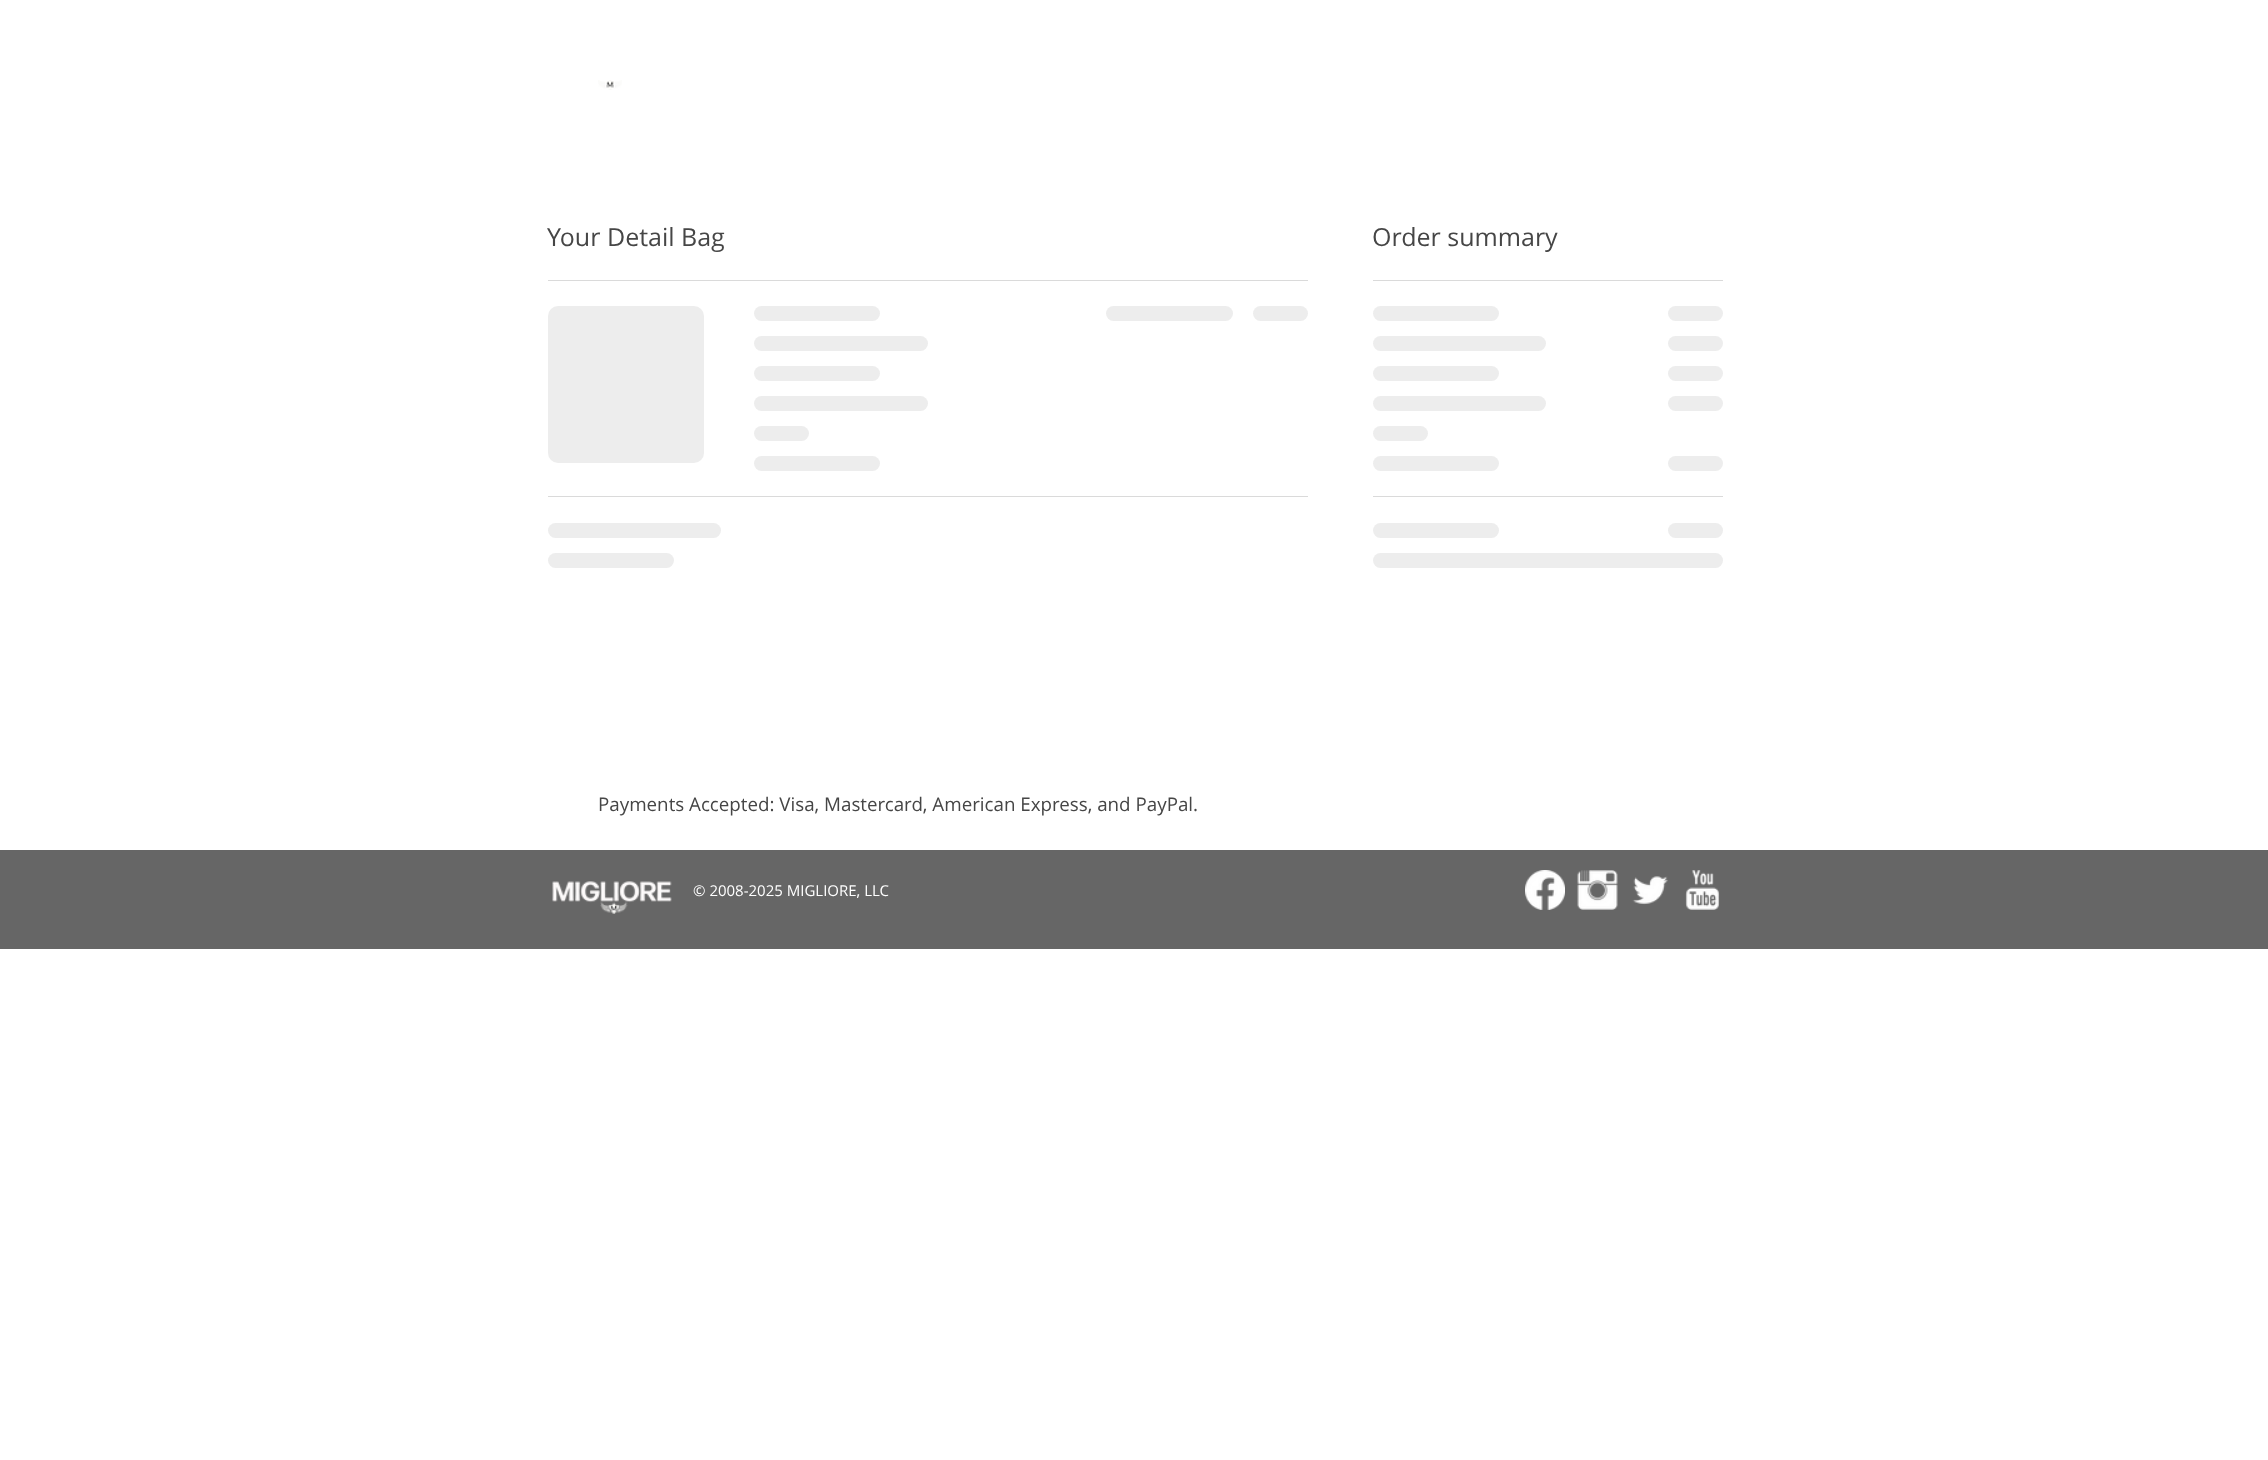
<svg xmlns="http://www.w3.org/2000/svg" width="2268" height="1460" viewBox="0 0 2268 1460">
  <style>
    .t1 { font: 25px Open Sans; fill: #464646; }
    .t2 { font: 18.75px Open Sans; fill: #464646; }
    .t3 { font: 15px Open Sans; fill: #fff; }
  </style>
  <defs>
    <linearGradient id="g1" gradientUnits="userSpaceOnUse" x1="548" y1="384" x2="1173" y2="384"><stop offset="0.25" stop-color="#ededed"/><stop offset="0.37" stop-color="#dadada"/><stop offset="0.63" stop-color="#ededed"/></linearGradient>
    <linearGradient id="g2" gradientUnits="userSpaceOnUse" x1="754" y1="314" x2="1259" y2="314"><stop offset="0.25" stop-color="#ededed"/><stop offset="0.37" stop-color="#dadada"/><stop offset="0.63" stop-color="#ededed"/></linearGradient>
    <linearGradient id="g3" gradientUnits="userSpaceOnUse" x1="754" y1="344" x2="1449" y2="344"><stop offset="0.25" stop-color="#ededed"/><stop offset="0.37" stop-color="#dadada"/><stop offset="0.63" stop-color="#ededed"/></linearGradient>
    <linearGradient id="g4" gradientUnits="userSpaceOnUse" x1="754" y1="374" x2="1259" y2="374"><stop offset="0.25" stop-color="#ededed"/><stop offset="0.37" stop-color="#dadada"/><stop offset="0.63" stop-color="#ededed"/></linearGradient>
    <linearGradient id="g5" gradientUnits="userSpaceOnUse" x1="754" y1="404" x2="1449" y2="404"><stop offset="0.25" stop-color="#ededed"/><stop offset="0.37" stop-color="#dadada"/><stop offset="0.63" stop-color="#ededed"/></linearGradient>
    <linearGradient id="g6" gradientUnits="userSpaceOnUse" x1="754" y1="434" x2="974" y2="434"><stop offset="0.25" stop-color="#ededed"/><stop offset="0.37" stop-color="#dadada"/><stop offset="0.63" stop-color="#ededed"/></linearGradient>
    <linearGradient id="g7" gradientUnits="userSpaceOnUse" x1="754" y1="464" x2="1259" y2="464"><stop offset="0.25" stop-color="#ededed"/><stop offset="0.37" stop-color="#dadada"/><stop offset="0.63" stop-color="#ededed"/></linearGradient>
    <linearGradient id="g8" gradientUnits="userSpaceOnUse" x1="1106" y1="314" x2="1611" y2="314"><stop offset="0.25" stop-color="#ededed"/><stop offset="0.37" stop-color="#dadada"/><stop offset="0.63" stop-color="#ededed"/></linearGradient>
    <linearGradient id="g9" gradientUnits="userSpaceOnUse" x1="1253" y1="314" x2="1473" y2="314"><stop offset="0.25" stop-color="#ededed"/><stop offset="0.37" stop-color="#dadada"/><stop offset="0.63" stop-color="#ededed"/></linearGradient>
    <linearGradient id="g10" gradientUnits="userSpaceOnUse" x1="548" y1="530" x2="1243" y2="530"><stop offset="0.25" stop-color="#ededed"/><stop offset="0.37" stop-color="#dadada"/><stop offset="0.63" stop-color="#ededed"/></linearGradient>
    <linearGradient id="g11" gradientUnits="userSpaceOnUse" x1="548" y1="560" x2="1053" y2="560"><stop offset="0.25" stop-color="#ededed"/><stop offset="0.37" stop-color="#dadada"/><stop offset="0.63" stop-color="#ededed"/></linearGradient>
    <linearGradient id="g12" gradientUnits="userSpaceOnUse" x1="1373" y1="314" x2="1878" y2="314"><stop offset="0.25" stop-color="#ededed"/><stop offset="0.37" stop-color="#dadada"/><stop offset="0.63" stop-color="#ededed"/></linearGradient>
    <linearGradient id="g13" gradientUnits="userSpaceOnUse" x1="1668" y1="314" x2="1888" y2="314"><stop offset="0.25" stop-color="#ededed"/><stop offset="0.37" stop-color="#dadada"/><stop offset="0.63" stop-color="#ededed"/></linearGradient>
    <linearGradient id="g14" gradientUnits="userSpaceOnUse" x1="1373" y1="344" x2="2068" y2="344"><stop offset="0.25" stop-color="#ededed"/><stop offset="0.37" stop-color="#dadada"/><stop offset="0.63" stop-color="#ededed"/></linearGradient>
    <linearGradient id="g15" gradientUnits="userSpaceOnUse" x1="1668" y1="344" x2="1888" y2="344"><stop offset="0.25" stop-color="#ededed"/><stop offset="0.37" stop-color="#dadada"/><stop offset="0.63" stop-color="#ededed"/></linearGradient>
    <linearGradient id="g16" gradientUnits="userSpaceOnUse" x1="1373" y1="374" x2="1878" y2="374"><stop offset="0.25" stop-color="#ededed"/><stop offset="0.37" stop-color="#dadada"/><stop offset="0.63" stop-color="#ededed"/></linearGradient>
    <linearGradient id="g17" gradientUnits="userSpaceOnUse" x1="1668" y1="374" x2="1888" y2="374"><stop offset="0.25" stop-color="#ededed"/><stop offset="0.37" stop-color="#dadada"/><stop offset="0.63" stop-color="#ededed"/></linearGradient>
    <linearGradient id="g18" gradientUnits="userSpaceOnUse" x1="1373" y1="404" x2="2068" y2="404"><stop offset="0.25" stop-color="#ededed"/><stop offset="0.37" stop-color="#dadada"/><stop offset="0.63" stop-color="#ededed"/></linearGradient>
    <linearGradient id="g19" gradientUnits="userSpaceOnUse" x1="1668" y1="404" x2="1888" y2="404"><stop offset="0.25" stop-color="#ededed"/><stop offset="0.37" stop-color="#dadada"/><stop offset="0.63" stop-color="#ededed"/></linearGradient>
    <linearGradient id="g20" gradientUnits="userSpaceOnUse" x1="1373" y1="434" x2="1593" y2="434"><stop offset="0.25" stop-color="#ededed"/><stop offset="0.37" stop-color="#dadada"/><stop offset="0.63" stop-color="#ededed"/></linearGradient>
    <linearGradient id="g21" gradientUnits="userSpaceOnUse" x1="1373" y1="464" x2="1878" y2="464"><stop offset="0.25" stop-color="#ededed"/><stop offset="0.37" stop-color="#dadada"/><stop offset="0.63" stop-color="#ededed"/></linearGradient>
    <linearGradient id="g22" gradientUnits="userSpaceOnUse" x1="1668" y1="464" x2="1888" y2="464"><stop offset="0.25" stop-color="#ededed"/><stop offset="0.37" stop-color="#dadada"/><stop offset="0.63" stop-color="#ededed"/></linearGradient>
    <linearGradient id="g23" gradientUnits="userSpaceOnUse" x1="1373" y1="530" x2="1878" y2="530"><stop offset="0.25" stop-color="#ededed"/><stop offset="0.37" stop-color="#dadada"/><stop offset="0.63" stop-color="#ededed"/></linearGradient>
    <linearGradient id="g24" gradientUnits="userSpaceOnUse" x1="1668" y1="530" x2="1888" y2="530"><stop offset="0.25" stop-color="#ededed"/><stop offset="0.37" stop-color="#dadada"/><stop offset="0.63" stop-color="#ededed"/></linearGradient>
    <linearGradient id="g25" gradientUnits="userSpaceOnUse" x1="1373" y1="560" x2="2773" y2="560"><stop offset="0.25" stop-color="#ededed"/><stop offset="0.37" stop-color="#dadada"/><stop offset="0.63" stop-color="#ededed"/></linearGradient>
  </defs>
  <rect width="100%" height="100%" fill="#fff"/>
  <image x="598" y="80" width="24" height="10" href="images/1.png"/>
  <rect x="548" y="280" width="760" height="1" fill="#dadada"/>
  <text x="547" y="246" class="t1">Your Detail Bag</text>
  <rect x="548" y="306" width="156" height="157" rx="10" fill="url(#g1)"/>
  <rect x="754" y="306" width="126" height="15" rx="7.5" fill="url(#g2)"/>
  <rect x="754" y="336" width="174" height="15" rx="7.5" fill="url(#g3)"/>
  <rect x="754" y="366" width="126" height="15" rx="7.5" fill="url(#g4)"/>
  <rect x="754" y="396" width="174" height="15" rx="7.5" fill="url(#g5)"/>
  <rect x="754" y="426" width="55" height="15" rx="7.5" fill="url(#g6)"/>
  <rect x="754" y="456" width="126" height="15" rx="7.5" fill="url(#g7)"/>
  <rect x="1106" y="306" width="127" height="15" rx="7.5" fill="url(#g8)"/>
  <rect x="1253" y="306" width="55" height="15" rx="7.5" fill="url(#g9)"/>
  <rect x="548" y="496" width="760" height="1" fill="#dadada"/>
  <rect x="548" y="523" width="173" height="15" rx="7.5" fill="url(#g10)"/>
  <rect x="548" y="553" width="126" height="15" rx="7.5" fill="url(#g11)"/>
  <rect x="1373" y="280" width="350" height="1" fill="#dadada"/>
  <text x="1372" y="246" class="t1">Order summary</text>
  <rect x="1373" y="306" width="126" height="15" rx="7.5" fill="url(#g12)"/>
  <rect x="1668" y="306" width="55" height="15" rx="7.5" fill="url(#g13)"/>
  <rect x="1373" y="336" width="173" height="15" rx="7.5" fill="url(#g14)"/>
  <rect x="1668" y="336" width="55" height="15" rx="7.5" fill="url(#g15)"/>
  <rect x="1373" y="366" width="126" height="15" rx="7.5" fill="url(#g16)"/>
  <rect x="1668" y="366" width="55" height="15" rx="7.5" fill="url(#g17)"/>
  <rect x="1373" y="396" width="173" height="15" rx="7.5" fill="url(#g18)"/>
  <rect x="1668" y="396" width="55" height="15" rx="7.5" fill="url(#g19)"/>
  <rect x="1373" y="426" width="55" height="15" rx="7.5" fill="url(#g20)"/>
  <rect x="1373" y="456" width="126" height="15" rx="7.5" fill="url(#g21)"/>
  <rect x="1668" y="456" width="55" height="15" rx="7.5" fill="url(#g22)"/>
  <rect x="1373" y="496" width="350" height="1" fill="#dadada"/>
  <rect x="1373" y="523" width="126" height="15" rx="7.5" fill="url(#g23)"/>
  <rect x="1668" y="523" width="55" height="15" rx="7.5" fill="url(#g24)"/>
  <rect x="1373" y="553" width="350" height="15" rx="7.5" fill="url(#g25)"/>
  <text x="598" y="811" class="t2">Payments Accepted: Visa, Mastercard, American Express, and PayPal.</text>
  <rect x="0" y="850" width="2268" height="99" fill="#666"/>
  <image x="552" y="881" width="120" height="33" href="images/2.png"/>
  <text x="693" y="896" class="t3">© 2008-2025 MIGLIORE, LLC</text>
  <image x="1525" y="870" width="40" height="40" href="images/3.png"/>
  <image x="1577" y="870" width="41" height="40" href="images/4.png"/>
  <image x="1632" y="876" width="36" height="29" href="images/5.png"/>
  <image x="1685" y="870" width="35" height="40" href="images/6.png"/>
</svg>
